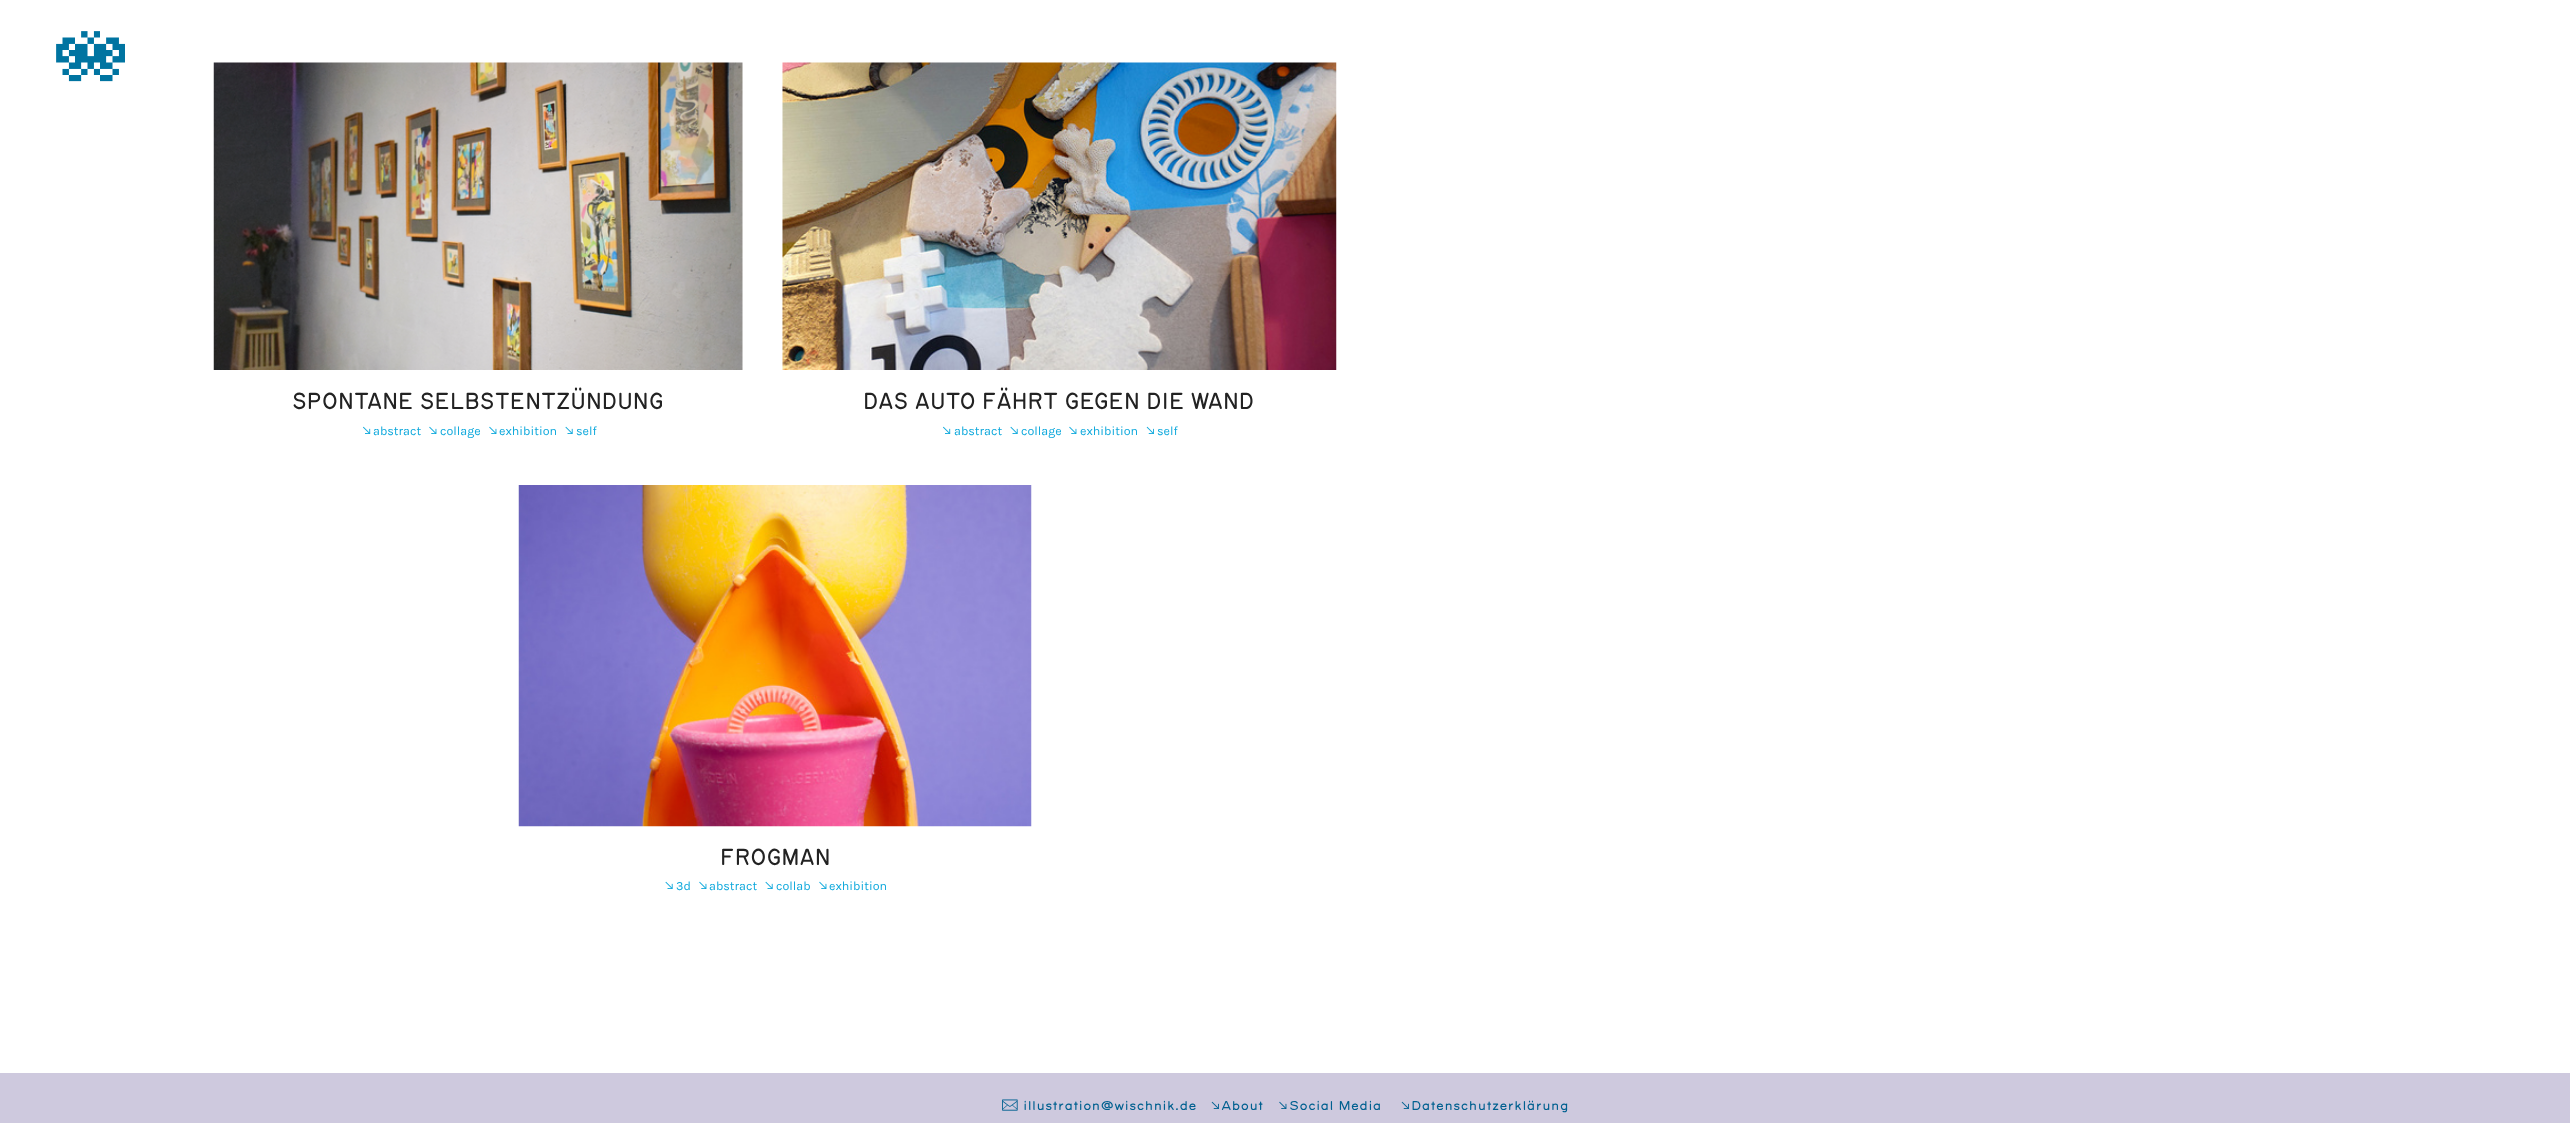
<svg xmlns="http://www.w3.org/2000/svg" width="2570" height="1123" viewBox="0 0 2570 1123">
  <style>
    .t1 { font: 22.6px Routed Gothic; fill: #222; }
    .t2 { font: 12.5px Karla; fill: #0da8dc; }
    .t3 { font: 12.5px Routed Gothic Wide; fill: #006090; }
  </style>
  <rect width="100%" height="100%" fill="#fff"/>
  <image x="56" y="31" width="69" height="51" href="images/1.png"/>
  <image x="213" y="62" width="530" height="308" href="images/2.png"/>
  <text x="292" y="409" class="t1">SPONTANE SELBSTENTZÜNDUNG</text>
  <image x="363" y="426" width="8" height="8" href="images/3.png"/>
  <text x="373" y="435" class="t2">abstract</text>
  <image x="429" y="426" width="8" height="8" href="images/4.png"/>
  <text x="440" y="435" class="t2">collage</text>
  <image x="489" y="426" width="8" height="8" href="images/4.png"/>
  <text x="499" y="435" class="t2">exhibition</text>
  <image x="565" y="426" width="8" height="8" href="images/5.png"/>
  <text x="576" y="435" class="t2">self</text>
  <image x="782" y="62" width="555" height="308" href="images/6.png"/>
  <text x="863" y="409" class="t1">DAS AUTO FÄHRT GEGEN DIE WAND</text>
  <image x="943" y="426" width="8" height="8" href="images/3.png"/>
  <text x="954" y="435" class="t2">abstract</text>
  <image x="1010" y="426" width="8" height="8" href="images/5.png"/>
  <text x="1021" y="435" class="t2">collage</text>
  <image x="1069" y="426" width="8" height="8" href="images/4.png"/>
  <text x="1080" y="435" class="t2">exhibition</text>
  <image x="1146" y="426" width="8" height="8" href="images/7.png"/>
  <text x="1157" y="435" class="t2">self</text>
  <image x="518" y="485" width="514" height="342" href="images/8.png"/>
  <text x="720" y="865" class="t1">FROGMAN</text>
  <image x="665" y="881" width="8" height="8" href="images/5.png"/>
  <text x="676" y="890" class="t2">3d</text>
  <image x="699" y="881" width="8" height="8" href="images/4.png"/>
  <text x="709" y="890" class="t2">abstract</text>
  <image x="765" y="881" width="8" height="8" href="images/5.png"/>
  <text x="776" y="890" class="t2">collab</text>
  <image x="819" y="881" width="8" height="8" href="images/4.png"/>
  <text x="829" y="890" class="t2">exhibition</text>
  <rect x="0" y="1073" width="2570" height="50" fill="#cec9de"/>
  <image x="1002" y="1099" width="16" height="12" href="images/9.png"/>
  <text x="1023" y="1110" class="t3">illustration@wischnik.de</text>
  <image x="1211" y="1101" width="8" height="8" href="images/10.png"/>
  <text x="1221" y="1110" class="t3">About</text>
  <image x="1279" y="1101" width="8" height="8" href="images/11.png"/>
  <text x="1289" y="1110" class="t3">Social Media</text>
  <image x="1401" y="1101" width="8" height="8" href="images/10.png"/>
  <text x="1411" y="1110" class="t3">Datenschutzerklärung</text>
</svg>
